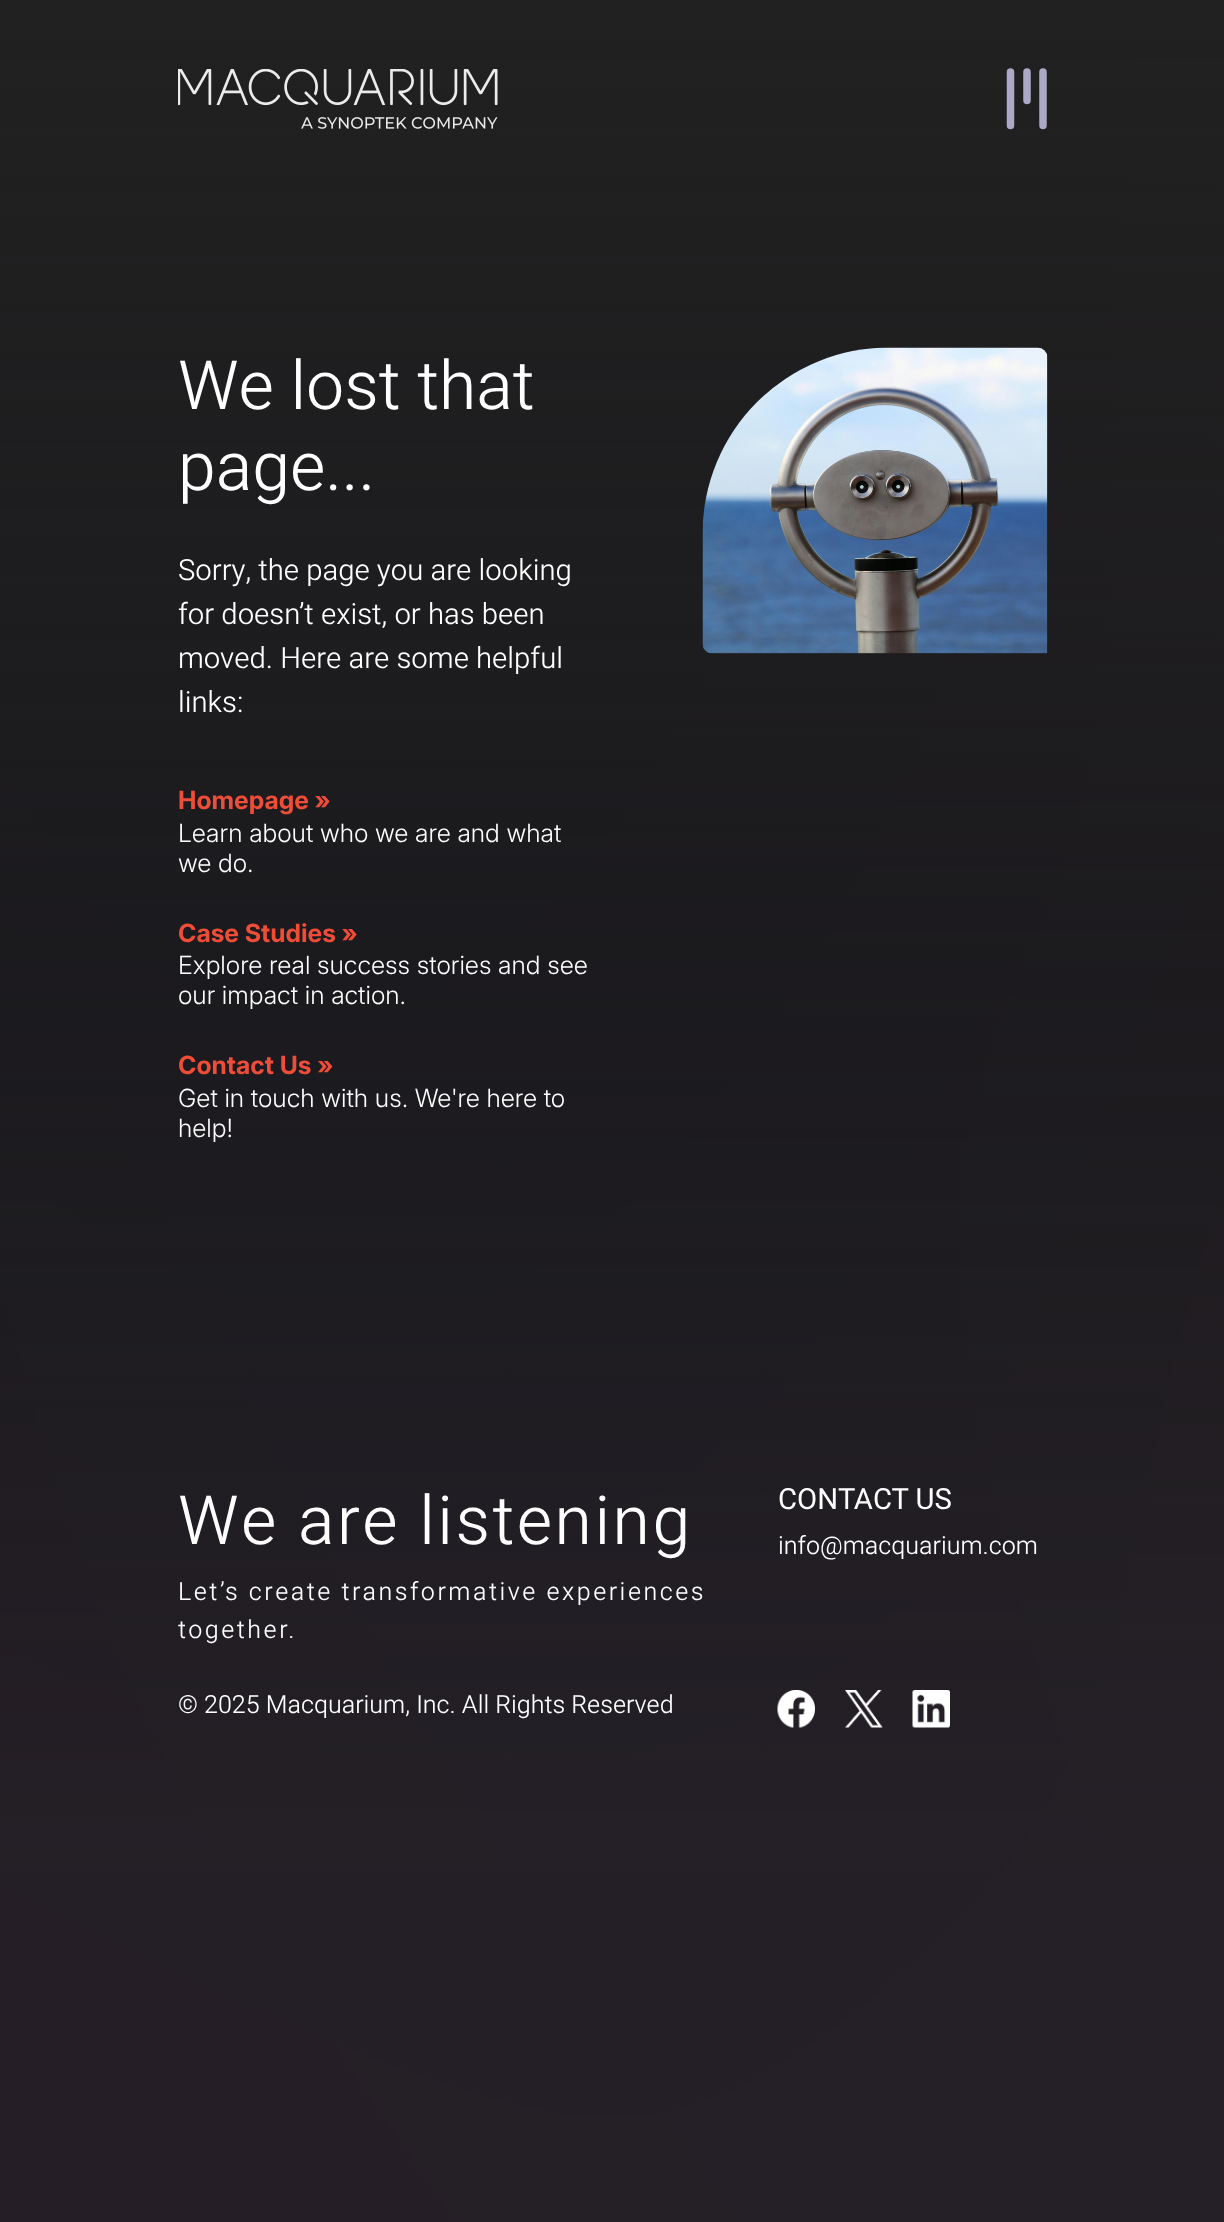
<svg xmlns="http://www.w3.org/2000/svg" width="1224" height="2222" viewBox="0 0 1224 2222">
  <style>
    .t1 { font: 300 67.75px Heebo; fill: #fff; }
    .t2 { font: 300 29.25px Heebo; fill: #fff; }
    .t3 { font: bold 25px Inter; fill: #f04d39; }
    .t4 { font: 300 25px Inter; fill: #fff; }
    .t5 { font: 300 67.75px Heebo; letter-spacing: 2.5px; fill: #fff; }
    .t6 { font: 300 25px Heebo; letter-spacing: 2.5px; fill: #fff; }
    .t7 { font: 300 25px Heebo; fill: #fff; }
    .t8 { font: 29.25px Heebo; fill: #fff; }
  </style>
  <rect width="100%" height="100%" fill="#201f27"/>
  <image x="0" y="0" width="1224" height="2222" href="images/1.png"/>
  <image x="178" y="69" width="320" height="60" href="images/2.png"/>
  <path d="M1010.5 72V125.5M1027 72V100.5M1043 72V125.5" fill="none" stroke="#aba9c3" stroke-width="7.5" stroke-linecap="round"/>
  <text x="178" y="409" class="t1">We lost that</text>
  <text x="178" y="490" class="t1">page...</text>
  <text x="178" y="580" class="t2">Sorry, the page you are looking</text>
  <text x="178" y="624" class="t2">for doesn’t exist, or has been</text>
  <text x="178" y="668" class="t2">moved. Here are some helpful</text>
  <text x="178" y="712" class="t2">links:</text>
  <text x="178" y="809" class="t3">Homepage »</text>
  <text x="178" y="842" class="t4">Learn about who we are and what</text>
  <text x="178" y="872" class="t4">we do.</text>
  <text x="178" y="942" class="t3">Case Studies »</text>
  <text x="178" y="974" class="t4">Explore real success stories and see</text>
  <text x="178" y="1004" class="t4">our impact in action.</text>
  <text x="178" y="1074" class="t3">Contact Us »</text>
  <text x="178" y="1107" class="t4">Get in touch with us. We're here to</text>
  <text x="178" y="1137" class="t4">help!</text>
  <image x="702" y="347" width="346" height="307" href="images/3.png"/>
  <text x="178" y="1544" class="t5">We are listening</text>
  <text x="178" y="1600" class="t6">Let’s create transformative experiences</text>
  <text x="178" y="1638" class="t6">together.</text>
  <text x="178" y="1713" class="t7">© 2025 Macquarium, Inc. All Rights Reserved</text>
  <text x="778" y="1509" class="t8">CONTACT US</text>
  <text x="778" y="1554" class="t7">info@macquarium.com</text>
  <image x="777" y="1690" width="38" height="38" href="images/4.png"/>
  <image x="845" y="1690" width="38" height="38" href="images/5.png"/>
  <image x="912" y="1690" width="38" height="38" href="images/6.png"/>
</svg>
